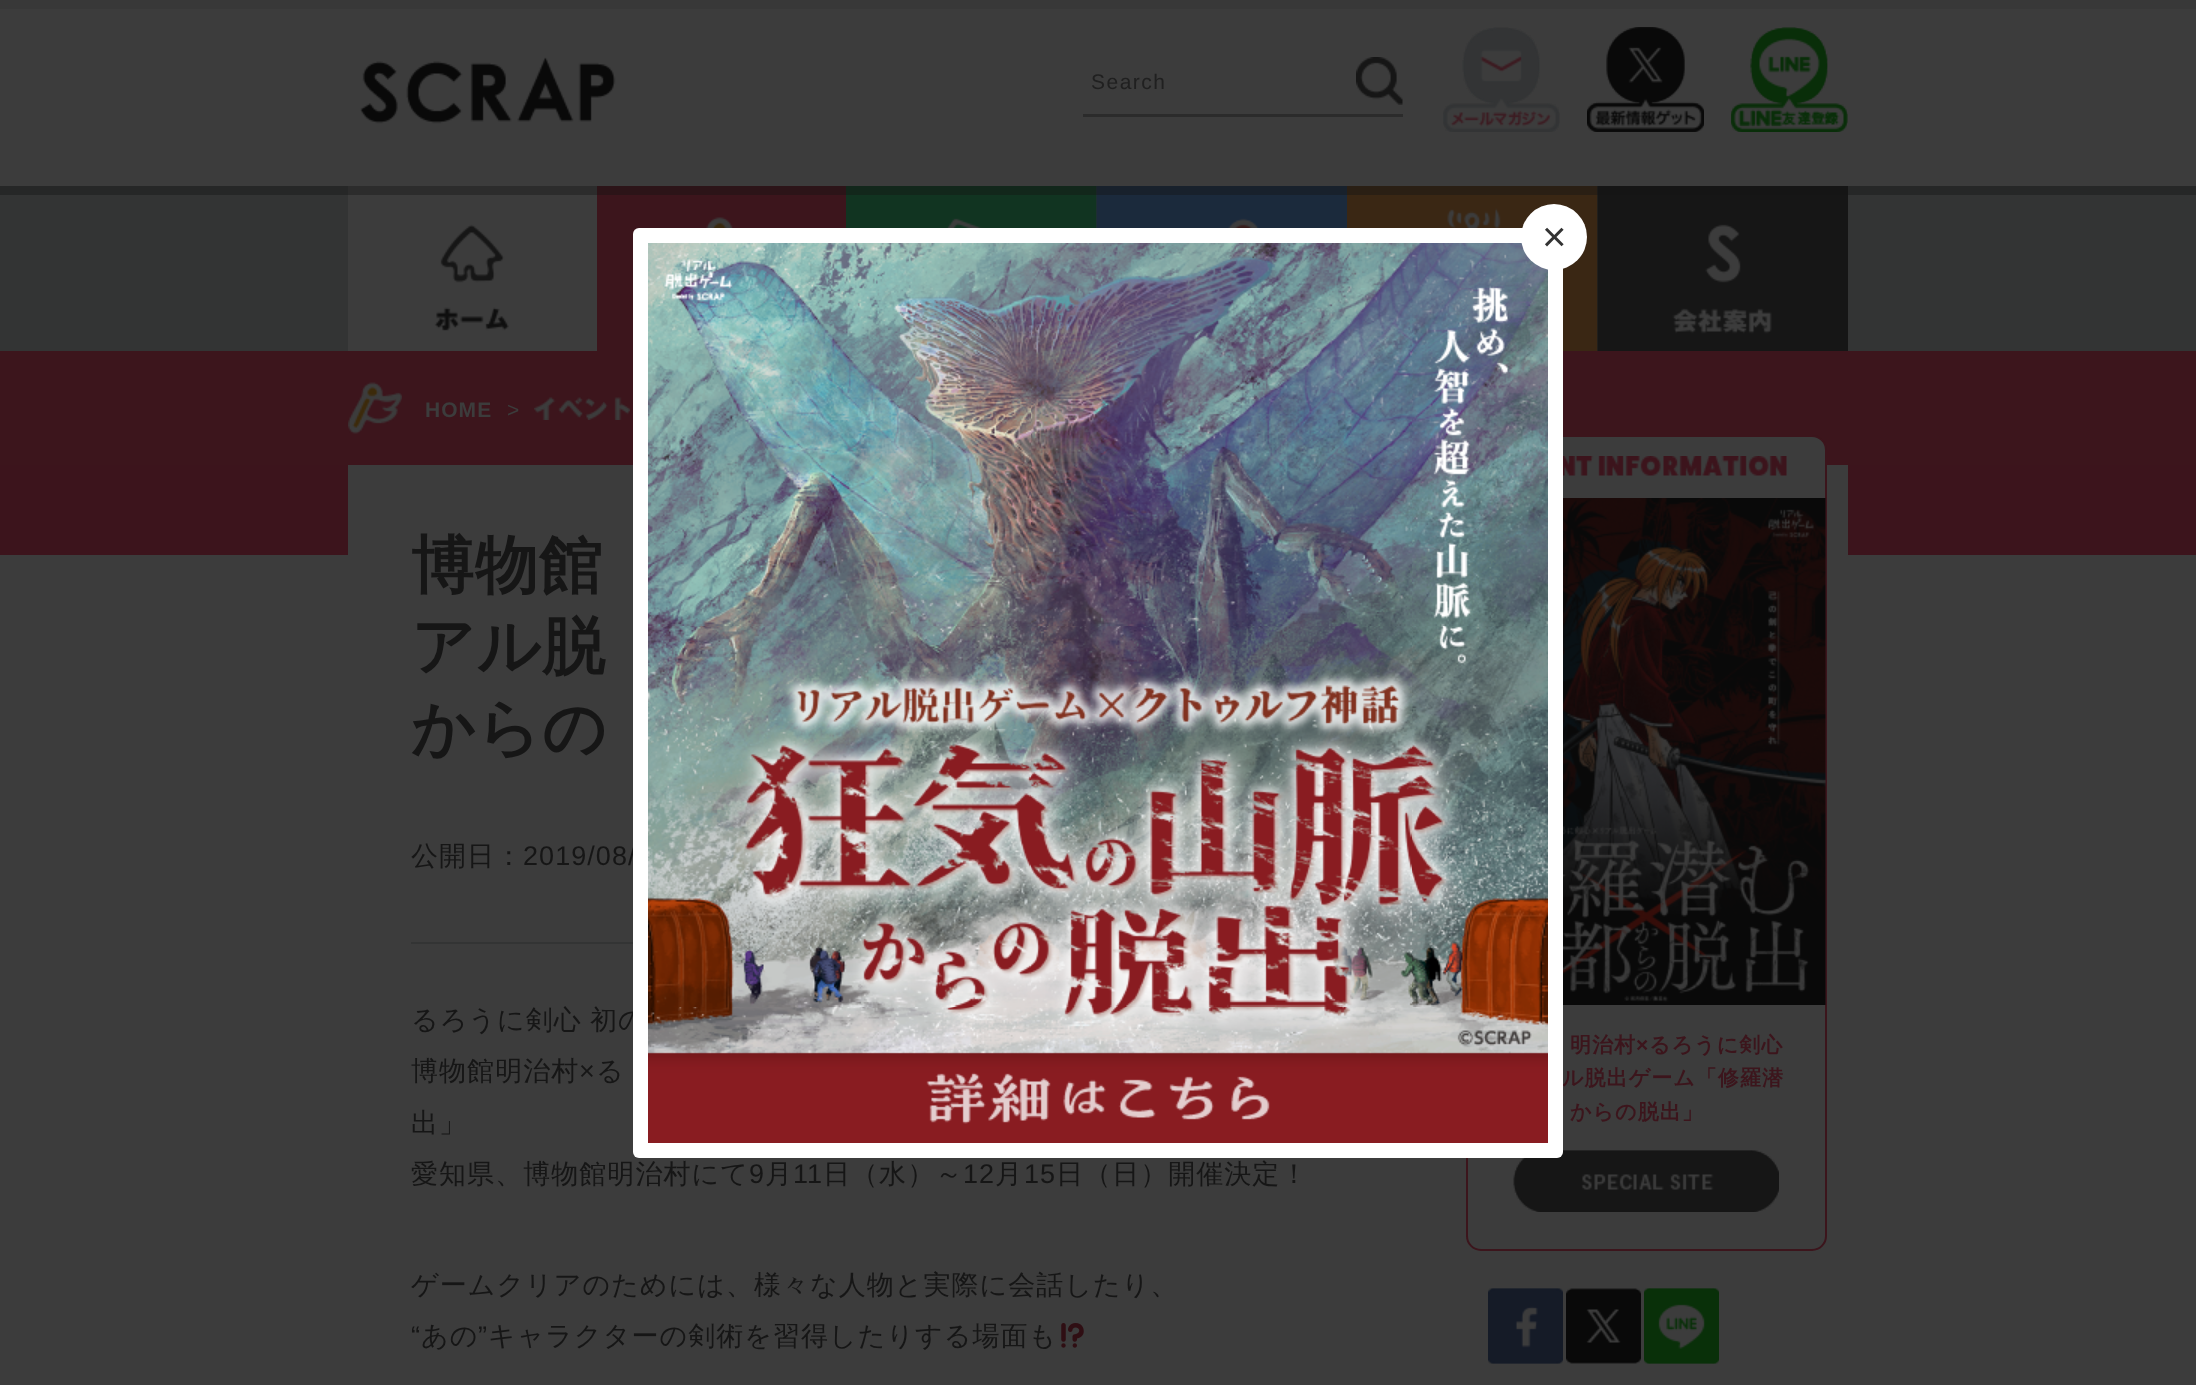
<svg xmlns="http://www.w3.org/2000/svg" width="2196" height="1385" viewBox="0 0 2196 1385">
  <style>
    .t1 { font: 21px Liberation Sans; letter-spacing: 1.5px; fill: #202020; }
    .t2 { font: bold 21px Liberation Sans; letter-spacing: 1.05px; fill: #3c3c3c; }
    .t3 { font: 21px Liberation Sans; letter-spacing: 1.05px; fill: #3c3c3c; }
    .t4 { font: bold 63px WenQuanYi Zen Hei; letter-spacing: 1.05px; fill: #161616; }
    .t5 { font: 500 27px WenQuanYi Zen Hei; letter-spacing: 1.05px; fill: #161616; }
    .t6 { font: 27px Liberation Sans; letter-spacing: 1.05px; fill: #161616; }
    .t7 { font: bold 21px WenQuanYi Zen Hei; letter-spacing: 1.05px; fill: #3c151c; }
    .t8 { font: bold 21px Liberation Sans; letter-spacing: 1.05px; fill: #3c151c; }
    .t9 { font: 42px Liberation Sans; fill: #333; }
  </style>
  <rect width="100%" height="100%" fill="#3c3c3c"/>
  <rect x="0" y="0" width="2196" height="9" fill="#383838"/>
  <image x="360" y="57" width="256" height="67" href="images/1.png"/>
  <rect x="1083" y="114" width="320" height="3" fill="#2b2b2b"/>
  <text x="1091" y="89" class="t1">Search</text>
  <image x="1356" y="57" width="47" height="48" href="images/2.png"/>
  <image x="1443" y="27" width="117" height="105" href="images/3.png"/>
  <image x="1443" y="27" width="117" height="105" href="images/4.png"/>
  <image x="1587" y="27" width="117" height="105" href="images/5.png"/>
  <image x="1587" y="27" width="117" height="105" href="images/6.png"/>
  <image x="1731" y="27" width="117" height="105" href="images/7.png"/>
  <image x="1731" y="27" width="117" height="105" href="images/8.png"/>
  <rect x="0" y="186" width="2196" height="165" fill="#333434"/>
  <image x="348" y="186" width="249" height="165" href="images/9.png"/>
  <image x="597" y="186" width="249" height="165" href="images/10.png"/>
  <image x="846" y="186" width="250" height="42" href="images/11.png"/>
  <rect x="1096" y="186" width="1" height="42" fill="#1e3428"/>
  <image x="1096" y="186" width="251" height="42" href="images/12.png"/>
  <image x="1347" y="186" width="250" height="165" href="images/13.png"/>
  <image x="1598" y="186" width="250" height="165" href="images/14.png"/>
  <rect x="1597" y="186" width="1" height="165" fill="#221f1b"/>
  <rect x="0" y="186" width="2196" height="9" fill="#13131366"/>
  <rect x="0" y="351" width="2196" height="114" fill="#3c151c"/>
  <image x="348" y="382" width="54" height="52" href="images/15.png"/>
  <text x="425" y="417" class="t2">HOME</text>
  <text x="507" y="417" class="t3">&gt;</text>
  <image x="534" y="397" width="96" height="23" href="images/16.png"/>
  <rect x="0" y="465" width="2196" height="90" fill="#3c141c"/>
  <rect x="348" y="465" width="1500" height="90" fill="#3c3c3c"/>
  <rect x="411" y="942" width="222" height="2" fill="#333434"/>
  <text x="411" y="587" class="t4">博物館</text>
  <text x="411" y="668" class="t4">アル脱</text>
  <text x="411" y="750" class="t4">からの</text>
  <text x="411" y="865" class="t5">公開日：</text>
  <text x="523" y="865" class="t6">2019/08/</text>
  <text x="411" y="1029" word-spacing="-1" class="t5">るろうに剣心 初の</text>
  <text x="411" y="1080" class="t5">博物館明治村</text>
  <text x="579" y="1080" class="t6">×</text>
  <text x="596" y="1080" class="t5">る</text>
  <text x="411" y="1132" class="t5">出」</text>
  <text x="411" y="1183" class="t5">愛知県、博物館明治村にて</text>
  <text x="749" y="1183" class="t6">9</text>
  <text x="765" y="1183" class="t5">月</text>
  <text x="793" y="1183" class="t6">11</text>
  <text x="823" y="1183" class="t5">日（水）～</text>
  <text x="963" y="1183" class="t6">12</text>
  <text x="995" y="1183" class="t5">月</text>
  <text x="1024" y="1183" class="t6">15</text>
  <text x="1056" y="1183" class="t5">日（日）開催決定！</text>
  <text x="411" y="1294" class="t5">ゲームクリアのためには、様々な人物と実際に会話したり、</text>
  <text x="411" y="1345" class="t6">“</text>
  <text x="421" y="1345" class="t5">あの</text>
  <text x="478" y="1345" class="t6">”</text>
  <text x="488" y="1345" class="t5">キャラクターの剣術を習得したりする場面も</text>
  <image x="1061" y="1323" width="23" height="25" href="images/17.png"/>
  <rect x="1467" y="436" width="359" height="814" rx="14" fill="#3c3c3c" stroke="#3c151c" stroke-width="2"/>
  <image x="1563" y="456" width="224" height="20" href="images/18.png"/>
  <image x="1563" y="498" width="263" height="507" href="images/19.png"/>
  <text x="1570" y="1052" class="t7">明治村</text>
  <text x="1636" y="1052" class="t8">×</text>
  <text x="1649" y="1052" class="t7">るろうに剣心</text>
  <text x="1562" y="1085" class="t7">ル脱出ゲーム「修羅潜</text>
  <text x="1570" y="1119" class="t7">からの脱出」</text>
  <image x="1513" y="1150" width="266" height="62" href="images/20.png"/>
  <image x="1513" y="1150" width="266" height="62" href="images/21.png"/>
  <image x="1488" y="1288" width="75" height="76" href="images/22.png"/>
  <image x="1488" y="1288" width="75" height="76" href="images/23.png"/>
  <image x="1566" y="1288" width="75" height="76" href="images/24.png"/>
  <image x="1566" y="1288" width="75" height="76" href="images/25.png"/>
  <image x="1644" y="1288" width="75" height="76" href="images/26.png"/>
  <image x="1644" y="1288" width="75" height="76" href="images/27.png"/>
  <rect x="633" y="228" width="930" height="930" rx="6" fill="#fff"/>
  <image x="648" y="243" width="900" height="900" href="images/28.png"/>
  <circle cx="1554" cy="237" r="33" fill="#fff"/>
  <text x="1542" y="251" class="t9">×</text>
</svg>
